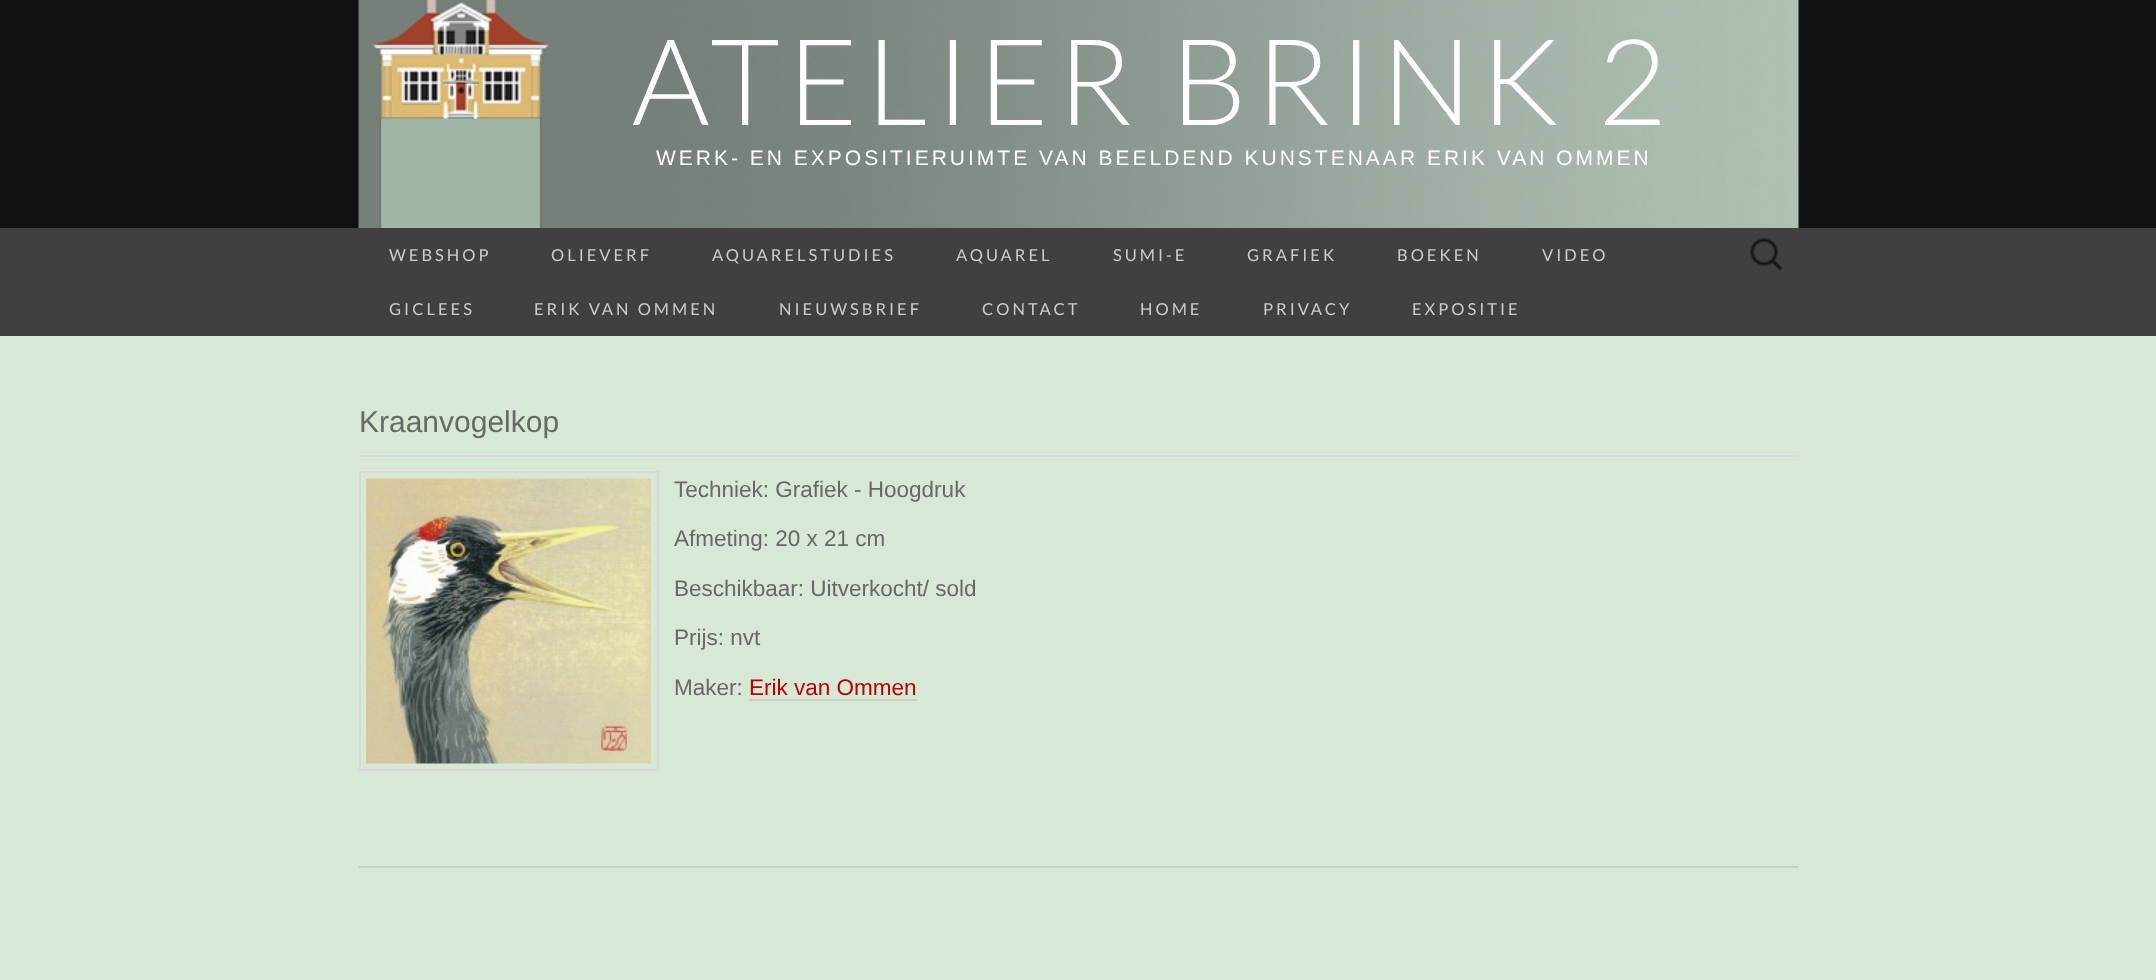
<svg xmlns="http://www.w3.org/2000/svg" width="2156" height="980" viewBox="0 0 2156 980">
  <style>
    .t1 { font: 300 120px Lato; letter-spacing: 7.5px; fill: #fff; }
    .t2 { font: 21px Liberation Sans; letter-spacing: 3px; fill: #fff; }
    .t3 { font: 16.5px Lato; letter-spacing: 3px; fill: #ccc; }
    .t4 { font: 30px Liberation Sans; fill: #686868; }
    .t5 { font: 22.5px Liberation Sans; fill: #686868; }
    .t6 { font: 22.5px Liberation Sans; fill: #b00; }
  </style>
  <rect width="100%" height="100%" fill="#d7e8d7"/>
  <rect x="0" y="0" width="2156" height="228" fill="#111"/>
  <image x="358" y="0" width="1441" height="228" href="images/1.png"/>
  <text x="632" y="125" class="t1">ATELIER BRINK 2</text>
  <text x="656" y="165" class="t2">WERK- EN EXPOSITIERUIMTE VAN BEELDEND KUNSTENAAR ERIK VAN OMMEN</text>
  <rect x="0" y="228" width="2156" height="108" fill="#404040"/>
  <text x="389" y="261" class="t3">WEBSHOP</text>
  <text x="551" y="261" class="t3">OLIEVERF</text>
  <text x="712" y="261" class="t3">AQUARELSTUDIES</text>
  <text x="956" y="261" class="t3">AQUAREL</text>
  <text x="1113" y="261" class="t3">SUMI-E</text>
  <text x="1247" y="261" class="t3">GRAFIEK</text>
  <text x="1397" y="261" class="t3">BOEKEN</text>
  <text x="1542" y="261" class="t3">VIDEO</text>
  <text x="389" y="315" class="t3">GICLEES</text>
  <text x="534" y="315" class="t3">ERIK VAN OMMEN</text>
  <text x="779" y="315" class="t3">NIEUWSBRIEF</text>
  <text x="982" y="315" class="t3">CONTACT</text>
  <text x="1140" y="315" class="t3">HOME</text>
  <text x="1263" y="315" class="t3">PRIVACY</text>
  <text x="1412" y="315" class="t3">EXPOSITIE</text>
  <image x="1750" y="238" width="33" height="33" href="images/2.png"/>
  <rect x="359" y="866" width="1440" height="2" fill="#c2d1c2"/>
  <rect x="359" y="455" width="1440" height="2" fill="#d8d8d8"/>
  <text x="359" y="432" class="t4">Kraanvogelkop</text>
  <rect x="360" y="472" width="298" height="298" fill="none" stroke="#d8d8d8" stroke-width="2"/>
  <image x="366" y="478" width="285" height="286" href="images/3.png"/>
  <text x="674" y="497" class="t5">Techniek: Grafiek - Hoogdruk</text>
  <text x="674" y="546" class="t5">Afmeting: 20 x 21 cm</text>
  <text x="674" y="596" class="t5">Beschikbaar: Uitverkocht/ sold</text>
  <text x="674" y="645" class="t5">Prijs: nvt</text>
  <text x="674" y="695" class="t5">Maker:</text>
  <text x="749" y="695" class="t6">Erik van Ommen</text>
  <rect x="749" y="699" width="168" height="2" fill="#c2d1c2"/>
</svg>
